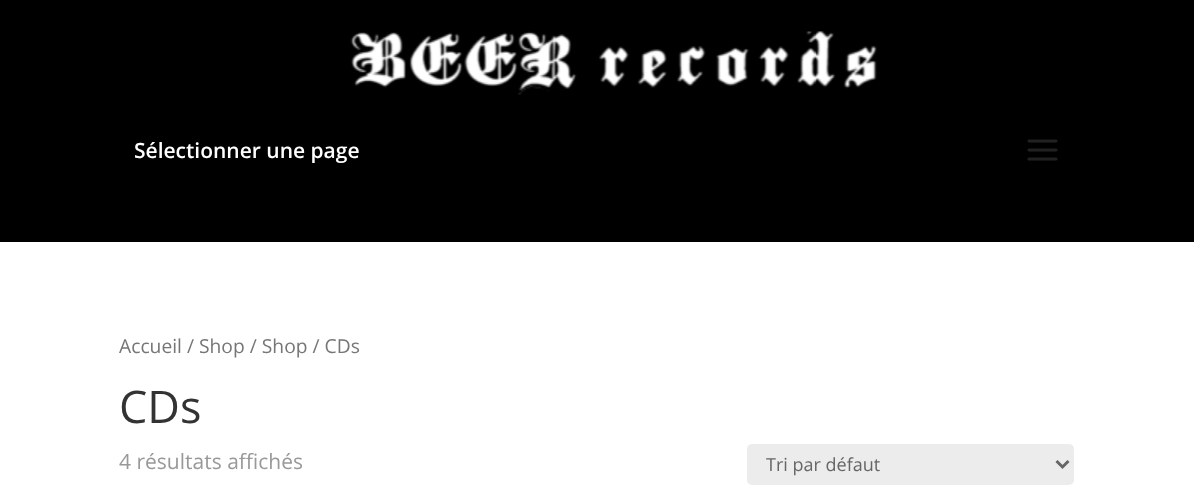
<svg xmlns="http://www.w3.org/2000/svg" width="1194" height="489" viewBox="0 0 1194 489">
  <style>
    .t1 { font: 600 21px Open Sans; fill: #fff; }
    .t2 { font: 19.25px Open Sans; fill: #767676; }
    .t3 { font: 45px Open Sans; fill: #333; }
    .t4 { font: 21px Open Sans; fill: #999; }
    .t5 { font: 18px Open Sans; fill: #666; }
  </style>
  <rect width="100%" height="100%" fill="#000"/>
  <image x="350" y="31" width="527" height="64" href="images/1.png"/>
  <text x="134" y="158" class="t1">Sélectionner une page</text>
  <image x="1027" y="139" width="31" height="22" href="images/2.png"/>
  <rect x="0" y="242" width="1194" height="247" fill="#fff"/>
  <text x="119" y="353" class="t2">Accueil / Shop / Shop / CDs</text>
  <text x="119" y="423" class="t3">CDs</text>
  <text x="119" y="469" class="t4">4 résultats affichés</text>
  <rect x="747" y="444" width="327" height="41" rx="5" fill="#ececec"/>
  <path d="M1056.5 461L1062.5 467L1068.5 461" fill="none" stroke="#666" stroke-width="3"/>
  <text x="766" y="471" class="t5">Tri par défaut</text>
</svg>
